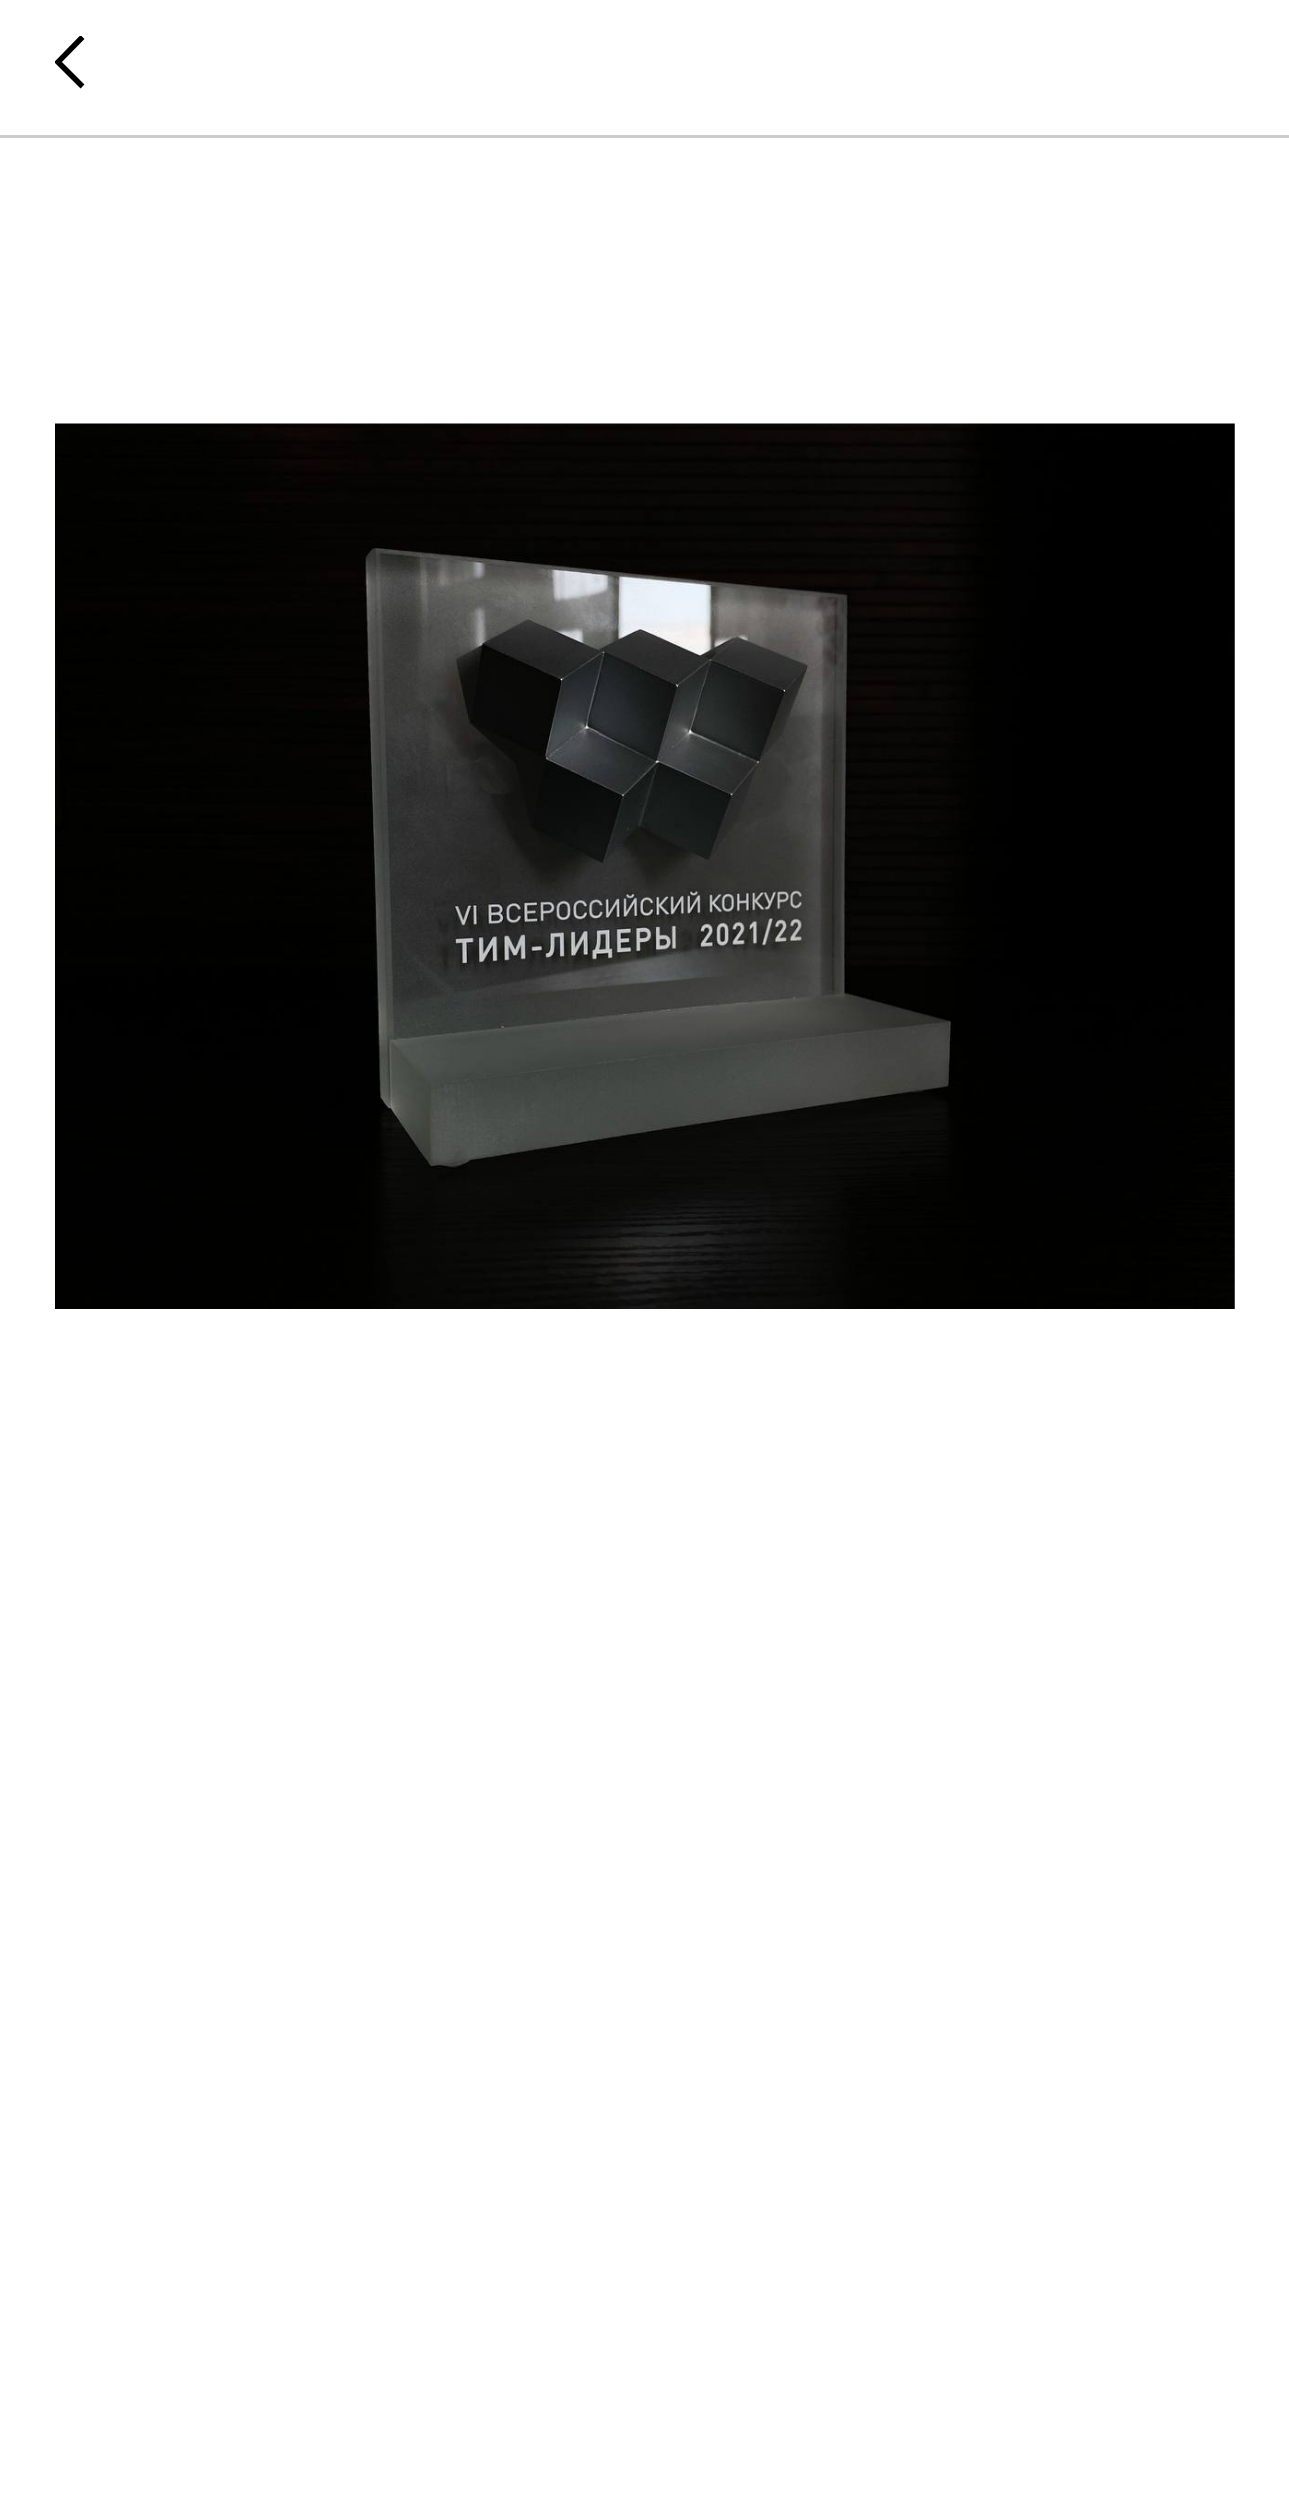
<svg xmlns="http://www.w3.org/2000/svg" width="1289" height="2504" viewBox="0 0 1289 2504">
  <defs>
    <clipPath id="clip1"><rect x="55" y="36" width="30" height="55"/></clipPath>
  </defs>
  <rect width="100%" height="100%" fill="#fff"/>
  <rect x="0" y="135" width="1289" height="3" fill="#ccc"/>
  <g clip-path="url(#clip1)">
    <path d="M82.5 86.5L58 62L82.5 37" fill="none" stroke="#000" stroke-width="5.5"/>
  </g>
  <image x="55" y="423" width="1180" height="886" href="images/1.png"/>
</svg>
